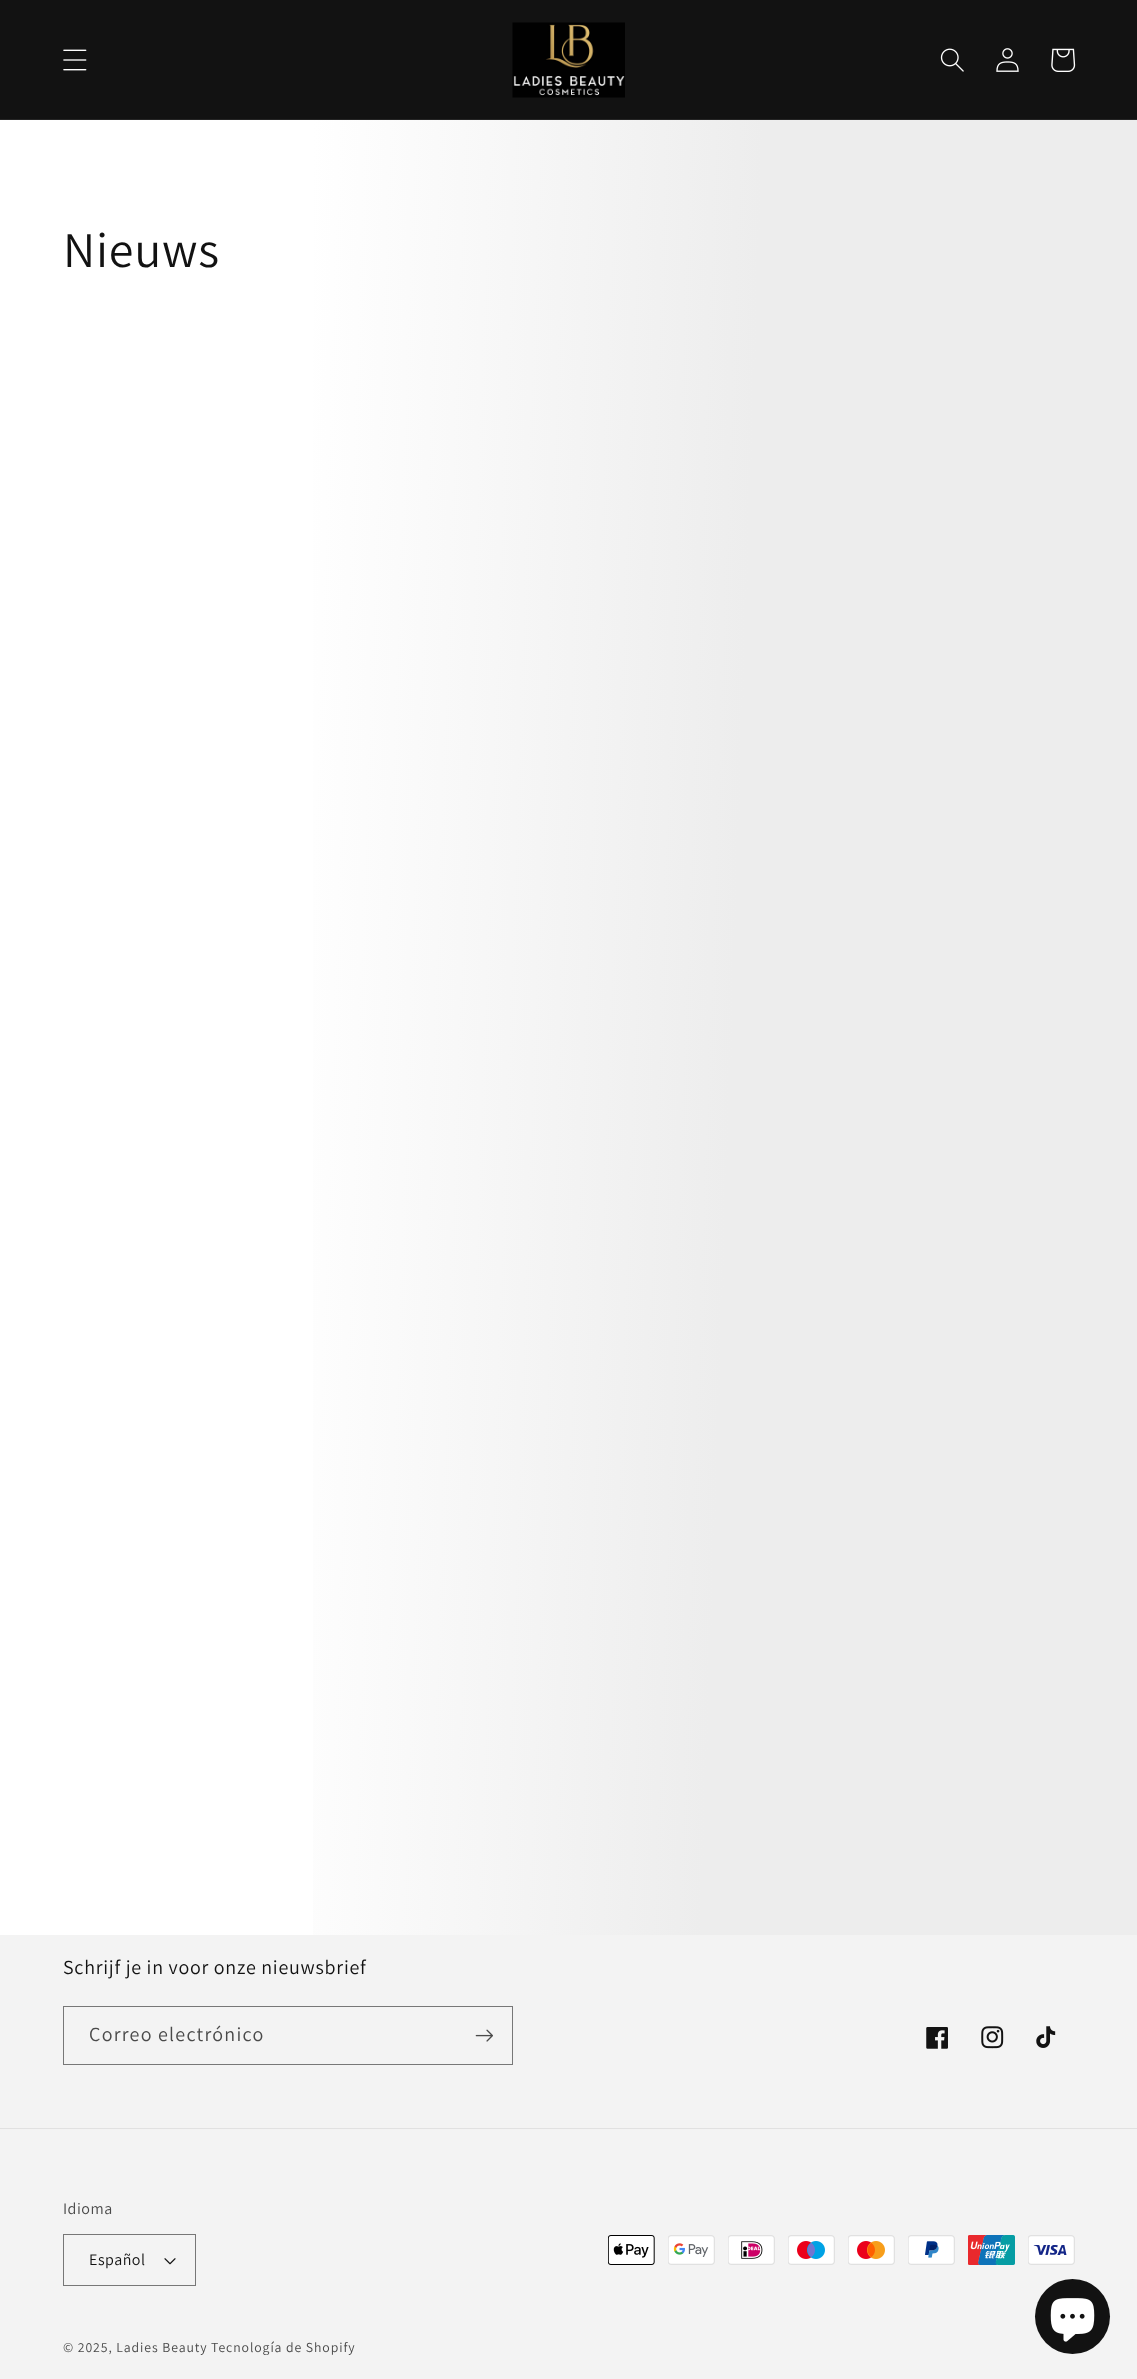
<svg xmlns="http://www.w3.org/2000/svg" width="1137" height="2379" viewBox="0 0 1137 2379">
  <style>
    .t1 { font: 50px Assistant; letter-spacing: 0.75px; fill: #121212; }
    .t2 { font: 20px Assistant; letter-spacing: 0.75px; fill: #121212; }
    .t3 { font: 20px Assistant; letter-spacing: 1.25px; fill: #4a4a4a; }
    .t4 { font: 16px Assistant; letter-spacing: 0.5px; fill: #4a4a4a; }
    .t5 { font: 16px Assistant; letter-spacing: 0.5px; fill: #121212; }
    .t6 { font: 13.75px Assistant; letter-spacing: 0.9px; fill: #4a4a4a; }
  </style>
  <defs>
    <linearGradient id="g1" gradientUnits="userSpaceOnUse" x1="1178" y1="1211" x2="-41" y2="1169"><stop offset="0.32" stop-color="#ededed"/><stop offset="0.37" stop-color="#ededed"/><stop offset="0.74" stop-color="#fff"/><stop offset="0.85" stop-color="#fff"/></linearGradient>
  </defs>
  <rect width="100%" height="100%" fill="#fff"/>
  <rect x="313" y="120" width="824" height="1815" fill="url(#g1)"/>
  <rect x="0" y="0" width="1137" height="119" fill="#121212"/>
  <rect x="0" y="119" width="1137" height="1" fill="#252525"/>
  <image x="63" y="49" width="24" height="22" href="images/1.png"/>
  <image x="512" y="22" width="113" height="76" href="images/2.png"/>
  <image x="940" y="48" width="24" height="24" href="images/3.png"/>
  <image x="996" y="48" width="23" height="24" href="images/4.png"/>
  <image x="1051" y="48" width="25" height="24" href="images/5.png"/>
  <text x="63" y="267" class="t1">Nieuws</text>
  <rect x="0" y="1935" width="1137" height="444" fill="#f3f3f3"/>
  <text x="63" y="1974" class="t2">Schrijf je in voor onze nieuwsbrief</text>
  <rect x="63.5" y="2006.5" width="449" height="58" fill="none" stroke="#777"/>
  <text x="89" y="2041" class="t3">Correo electrónico</text>
  <image x="475" y="2029" width="18" height="13" href="images/6.png"/>
  <image x="926" y="2027" width="22" height="22" href="images/7.png"/>
  <image x="981" y="2026" width="23" height="23" href="images/8.png"/>
  <image x="1036" y="2026" width="20" height="22" href="images/9.png"/>
  <rect x="0" y="2128" width="1137" height="1" fill="#e1e1e1"/>
  <text x="63" y="2214" class="t4">Idioma</text>
  <image x="164" y="2258" width="12" height="7" href="images/10.png"/>
  <rect x="63.5" y="2234.5" width="132" height="51" fill="none" stroke="#777"/>
  <text x="89" y="2265" class="t5">Español</text>
  <image x="608" y="2235" width="47" height="30" href="images/11.png"/>
  <image x="668" y="2235" width="47" height="30" href="images/12.png"/>
  <image x="728" y="2235" width="47" height="30" href="images/13.png"/>
  <image x="788" y="2235" width="47" height="30" href="images/14.png"/>
  <image x="848" y="2235" width="47" height="30" href="images/15.png"/>
  <image x="908" y="2235" width="47" height="30" href="images/16.png"/>
  <image x="968" y="2235" width="47" height="30" href="images/17.png"/>
  <image x="1028" y="2235" width="47" height="30" href="images/18.png"/>
  <text x="63" y="2352" class="t6">© 2025, Ladies Beauty Tecnología de Shopify</text>
  <circle cx="1072.5" cy="2316.5" r="37.5" fill="#121212"/>
  <image x="1050" y="2298" width="45" height="44" href="images/19.png"/>
</svg>
